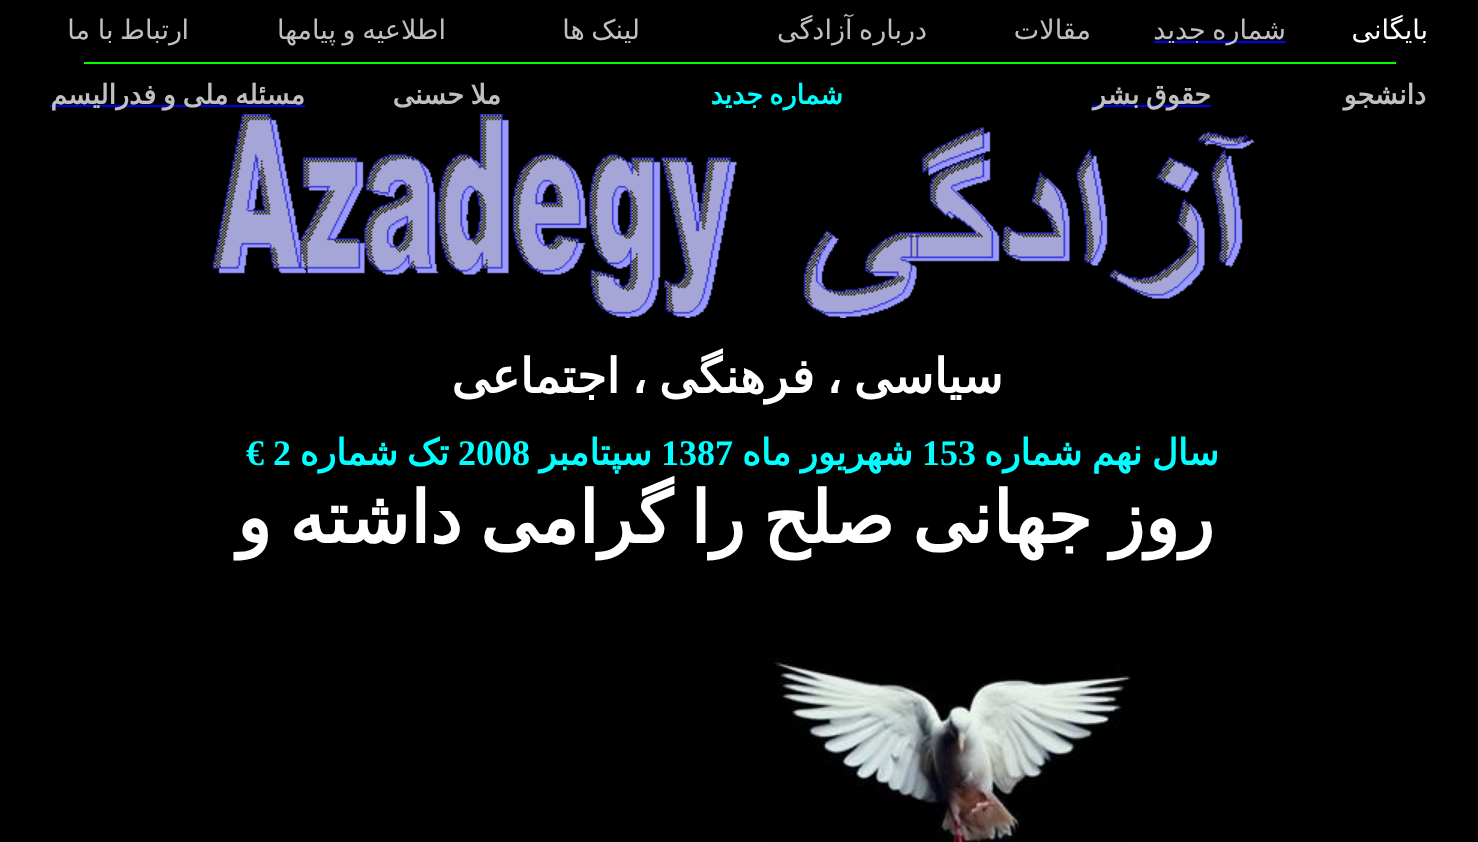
<svg xmlns="http://www.w3.org/2000/svg" width="1478" height="842" viewBox="0 0 1478 842">
  <style>
    .t1 { font: 27px DejaVu Sans; direction: rtl; fill: #fff; }
    .t2 { font: 27px DejaVu Sans; direction: rtl; fill: #c0c0c0; }
    .t3 { font: bold 27px DejaVu Sans; direction: rtl; fill: #c0c0c0; }
    .t4 { font: bold 27px DejaVu Sans; direction: rtl; fill: #0ff; }
    .t5 { font: bold 48px DejaVu Sans; direction: rtl; fill: #fff; }
    .t6 { font: bold 36px DejaVu Sans; direction: rtl; fill: #0ff; }
    .t7 { font: bold 36px Liberation Serif; fill: #0ff; }
    .t8 { font: bold 72px DejaVu Sans; direction: rtl; fill: #fff; }
  </style>
  <rect width="100%" height="100%" fill="#000"/>
  <text x="1428" y="39" class="t1">بایگانی</text>
  <rect x="1154" y="41" width="132" height="2" fill="#00e"/>
  <text x="1286" y="39" word-spacing="-2" class="t2">شماره جدید</text>
  <text x="1091" y="39" class="t2">مقالات</text>
  <text x="927" y="39" word-spacing="-2" class="t2">درباره آزادگی</text>
  <text x="640" y="39" word-spacing="-2" class="t2">لینک ها</text>
  <text x="446" y="39" word-spacing="-2" class="t2">اطلاعیه و پیامها</text>
  <text x="189" y="39" class="t2">ا</text>
  <text x="182" y="39" word-spacing="-2" class="t2">رتباط با</text>
  <text x="90" y="39" class="t2">ما</text>
  <rect x="84" y="62" width="1312" height="2" fill="#0f0"/>
  <text x="1426" y="104" class="t3">دانشجو</text>
  <rect x="1092" y="105" width="119" height="2" fill="#00e"/>
  <text x="1211" y="104" word-spacing="-2" class="t3">حقوق بشر</text>
  <text x="843" y="104" class="t4">شماره</text>
  <text x="763" y="104" class="t4">جدید</text>
  <text x="501" y="104" word-spacing="-2" class="t3">ملا حسنی</text>
  <rect x="50" y="105" width="255" height="2" fill="#00e"/>
  <text x="305" y="104" word-spacing="-2" class="t3">مسئله ملی و فدرالیسم</text>
  <image x="803" y="127" width="451" height="191" href="images/1.png"/>
  <image x="212" y="114" width="525" height="204" href="images/2.png"/>
  <text x="1003" y="393" word-spacing="-3.5" class="t5">سیاسی ، فرهنگی ، اجتماعی</text>
  <text x="1219" y="465" word-spacing="-2" class="t6">سال نهم شماره</text>
  <text x="922" y="465" class="t7">153</text>
  <text x="913" y="465" class="t6">شهریور</text>
  <text x="791" y="465" class="t6">ماه</text>
  <text x="661" y="465" class="t7">1387</text>
  <text x="652" y="465" class="t6">سپتامبر</text>
  <text x="458" y="465" class="t7">2008</text>
  <text x="449" y="465" class="t6">تک</text>
  <text x="398" y="465" class="t6">شماره</text>
  <text x="273" y="465" class="t7">2</text>
  <text x="246" y="465" class="t7">€</text>
  <text x="1214" y="543" word-spacing="-5" class="t8">روز جهانی صلح را گرامی داشته و</text>
  <image x="768" y="657" width="363" height="185" href="images/3.png"/>
</svg>
